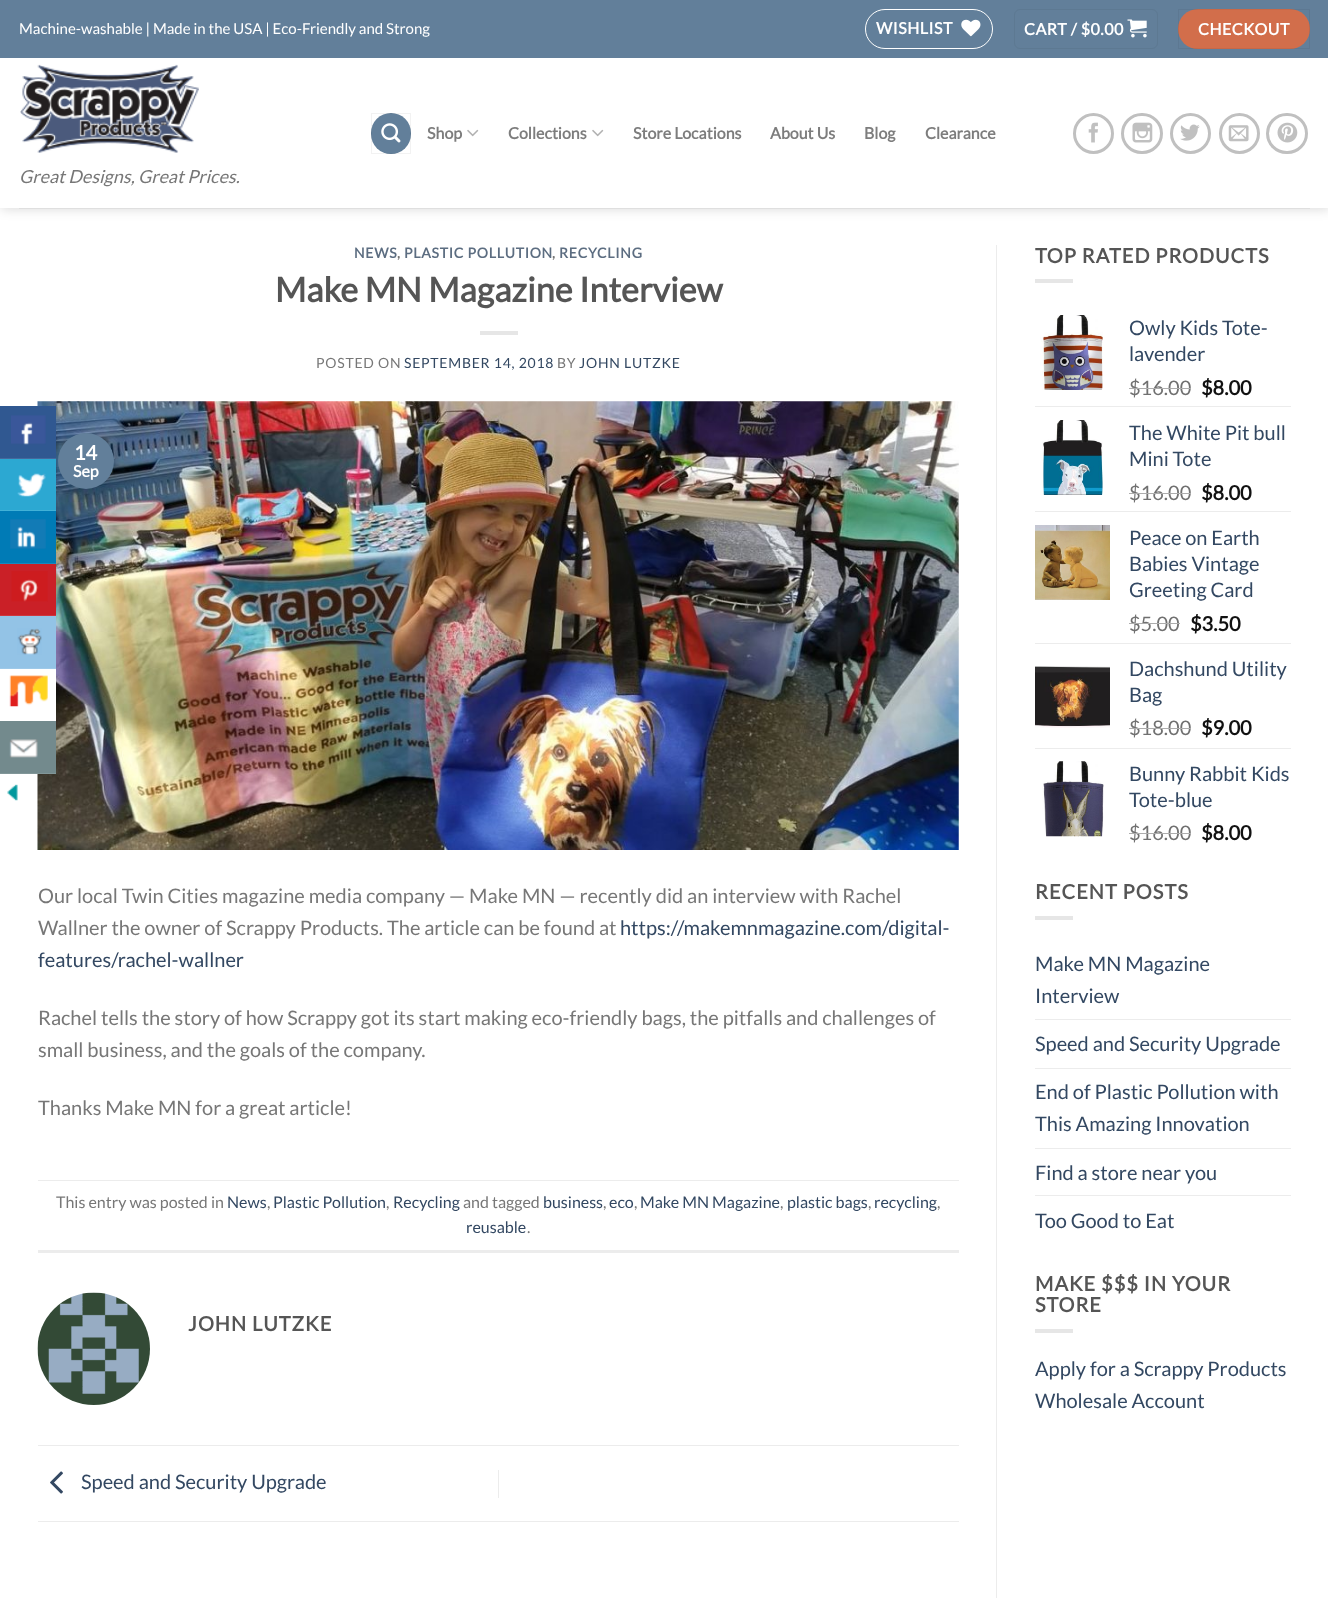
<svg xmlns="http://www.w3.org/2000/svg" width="1328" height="1624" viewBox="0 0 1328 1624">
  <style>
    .t1 { font: 15px Lato; fill: #fff; }
    .t2 { font: bold 16px Lato; letter-spacing: 0.5px; fill: #fff; }
    .t3 { font: bold 16px Lato; fill: #7d7d7d; }
    .t4 { font: italic 18px Lato; fill: #777; }
    .t5 { font: bold 14px Lato; letter-spacing: 0.75px; fill: #5c6d81; }
    .t6 { font: bold 14px Lato; letter-spacing: 0.75px; fill: #777; }
    .t7 { font: bold 34px Lato; fill: #555; }
    .t8 { font: 14px Lato; letter-spacing: 0.75px; fill: #777; }
    .t9 { font: 14px Lato; letter-spacing: 0.75px; fill: #334862; }
    .t10 { font: bold 20px Lato; fill: #fff; }
    .t11 { font: bold 16px Lato; fill: #fff; }
    .t12 { font: 20px Lato; fill: #777; }
    .t13 { font: 20px Lato; fill: #334862; }
    .t14 { font: 16px Lato; fill: #777; }
    .t15 { font: 16px Lato; fill: #334862; }
    .t16 { font: bold 20px Lato; letter-spacing: 1px; fill: #555; }
    .t17 { font: 20px Lato; fill: #707070; }
    .t18 { font: bold 20px Lato; fill: #111; }
  </style>
  <rect width="100%" height="100%" fill="#fff"/>
  <rect x="1" y="1" width="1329" height="208" fill="#00000026" filter="blur(6px)"/>
  <rect x="0" y="58" width="1328" height="150" fill="#fff"/>
  <rect x="0" y="0" width="1328" height="58" fill="#627f9a"/>
  <text x="19" y="34" class="t1">Machine-washable | Made in the USA | Eco-Friendly and Strong</text>
  <rect x="865.5" y="9.5" width="127" height="39" rx="19.5" fill="none" stroke="#fff"/>
  <text x="876" y="34" class="t2">WISHLIST</text>
  <image x="961" y="19" width="20" height="18" href="images/1.png"/>
  <rect x="1014.5" y="9.5" width="143" height="39" rx="5.5" fill="none" stroke="#5d7992"/>
  <text x="1024" y="35" class="t2">CART / $0.00</text>
  <image x="1127" y="19" width="20" height="19" href="images/2.png"/>
  <rect x="1178" y="9" width="132" height="40" rx="20" fill="#d26e4b"/>
  <rect x="1178.5" y="9.5" width="131" height="39" fill="none" stroke="#0000000d"/>
  <text x="1198" y="35" class="t2">CHECKOUT</text>
  <rect x="371" y="113" width="40" height="41" rx="20" fill="#627f9a"/>
  <rect x="371.5" y="113.5" width="39" height="40" fill="none" stroke="#0000000d"/>
  <image x="381" y="123" width="20" height="20" href="images/3.png"/>
  <text x="427" y="139" class="t3">Shop</text>
  <image x="467" y="129" width="12" height="8" href="images/4.png"/>
  <text x="508" y="139" class="t3">Collections</text>
  <image x="592" y="129" width="12" height="8" href="images/4.png"/>
  <text x="633" y="139" class="t3">Store Locations</text>
  <text x="770" y="139" class="t3">About Us</text>
  <text x="864" y="139" class="t3">Blog</text>
  <text x="925" y="139" class="t3">Clearance</text>
  <circle cx="1093.5" cy="133.5" r="19" fill="none" stroke="#c0c0c0" stroke-width="3"/>
  <image x="1088" y="122" width="10" height="21" href="images/5.png"/>
  <rect x="1122.5" y="114.5" width="39" height="38" rx="19" fill="none" stroke="#c0c0c0" stroke-width="3"/>
  <image x="1132" y="122" width="21" height="21" href="images/6.png"/>
  <circle cx="1190.5" cy="133.5" r="19" fill="none" stroke="#c0c0c0" stroke-width="3"/>
  <image x="1180" y="124" width="20" height="17" href="images/7.png"/>
  <circle cx="1239.5" cy="133.5" r="19" fill="none" stroke="#c0c0c0" stroke-width="3"/>
  <image x="1228" y="125" width="21" height="17" href="images/8.png"/>
  <rect x="1267.5" y="114.5" width="39" height="38" rx="19" fill="none" stroke="#c0c0c0" stroke-width="3"/>
  <image x="1277" y="122" width="21" height="21" href="images/9.png"/>
  <image x="20" y="64" width="179" height="89" href="images/10.png"/>
  <text x="19" y="183" class="t4">Great Designs, Great Prices.</text>
  <rect x="19" y="208" width="1291" height="1" fill="#dfdfdf"/>
  <text x="354" y="258" class="t5">NEWS</text>
  <text x="397" y="258" class="t6">,</text>
  <text x="404" y="258" class="t5">PLASTIC POLLUTION</text>
  <text x="552" y="258" class="t6">,</text>
  <text x="559" y="258" class="t5">RECYCLING</text>
  <text x="275" y="302" class="t7">Make MN Magazine Interview</text>
  <rect x="480" y="331" width="38" height="4" fill="#e6e6e6"/>
  <text x="316" y="368" class="t8">POSTED ON</text>
  <text x="404" y="368" class="t9">SEPTEMBER 14, 2018</text>
  <text x="557" y="368" class="t8">BY</text>
  <text x="579" y="368" class="t9">JOHN LUTZKE</text>
  <image x="37" y="401" width="922" height="449" href="images/11.png"/>
  <circle cx="86" cy="461" r="28" fill="#627f9a"/>
  <text x="74" y="460" class="t10">14</text>
  <text x="73" y="477" class="t11">Sep</text>
  <text x="38" y="903" class="t12">Our local Twin Cities magazine media company — Make MN — recently did an interview with Rachel</text>
  <text x="38" y="935" class="t12">Wallner the owner of Scrappy Products. The article can be found at</text>
  <text x="620" y="935" class="t13">https://makemnmagazine.com/digital-</text>
  <text x="38" y="967" class="t13">features/rachel-wallner</text>
  <text x="38" y="1025" class="t12">Rachel tells the story of how Scrappy got its start making eco-friendly bags, the pitfalls and challenges of</text>
  <text x="38" y="1057" class="t12">small business, and the goals of the company.</text>
  <text x="38" y="1115" class="t12">Thanks Make MN for a great article!</text>
  <rect x="38" y="1180" width="921" height="1" fill="#ececec"/>
  <rect x="38" y="1250" width="921" height="3" fill="#ececec"/>
  <text x="56" y="1208" class="t14">This entry was posted in</text>
  <text x="227" y="1208" class="t15">News</text>
  <text x="267" y="1208" class="t14">,</text>
  <text x="273" y="1208" class="t15">Plastic Pollution</text>
  <text x="386" y="1208" class="t14">,</text>
  <text x="393" y="1208" class="t15">Recycling</text>
  <text x="463" y="1208" class="t14">and tagged</text>
  <text x="543" y="1208" class="t15">business</text>
  <text x="603" y="1208" class="t14">,</text>
  <text x="609" y="1208" class="t15">eco</text>
  <text x="634" y="1208" class="t14">,</text>
  <text x="640" y="1208" class="t15">Make MN Magazine</text>
  <text x="780" y="1208" class="t14">,</text>
  <text x="787" y="1208" class="t15">plastic bags</text>
  <text x="868" y="1208" class="t14">,</text>
  <text x="874" y="1208" class="t15">recycling</text>
  <text x="937" y="1208" class="t14">,</text>
  <text x="466" y="1233" class="t15">reusable</text>
  <text x="527" y="1233" class="t14">.</text>
  <image x="37" y="1292" width="113" height="113" href="images/12.png"/>
  <text x="188" y="1331" class="t16">JOHN LUTZKE</text>
  <rect x="38" y="1445" width="921" height="1" fill="#ececec"/>
  <rect x="38" y="1521" width="921" height="1" fill="#ececec"/>
  <image x="50" y="1471" width="13" height="23" href="images/13.png"/>
  <text x="81" y="1489" class="t13">Speed and Security Upgrade</text>
  <rect x="498" y="1470" width="1" height="28" fill="#ececec"/>
  <rect x="996" y="245" width="1" height="1353" fill="#ececec"/>
  <text x="1035" y="263" class="t16">TOP RATED PRODUCTS</text>
  <rect x="1035" y="279" width="38" height="4" fill="#e6e6e6"/>
  <image x="1040" y="315" width="63" height="75" href="images/14.png"/>
  <text x="1129" y="335" class="t13">Owly Kids Tote-</text>
  <text x="1129" y="361" class="t13">lavender</text>
  <text x="1129" y="395" class="t17">$16.00</text>
  <rect x="1129" y="388" width="62" height="1" fill="#adadad"/>
  <text x="1201" y="395" class="t18">$8.00</text>
  <rect x="1035" y="406" width="256" height="1" fill="#ececec"/>
  <image x="1040" y="420" width="63" height="75" href="images/15.png"/>
  <text x="1129" y="440" class="t13">The White Pit bull</text>
  <text x="1129" y="466" class="t13">Mini Tote</text>
  <text x="1129" y="500" class="t17">$16.00</text>
  <rect x="1129" y="493" width="62" height="1" fill="#adadad"/>
  <text x="1201" y="500" class="t18">$8.00</text>
  <rect x="1035" y="511" width="256" height="1" fill="#ececec"/>
  <image x="1035" y="525" width="75" height="75" href="images/16.png"/>
  <text x="1129" y="545" class="t13">Peace on Earth</text>
  <text x="1129" y="571" class="t13">Babies Vintage</text>
  <text x="1129" y="597" class="t13">Greeting Card</text>
  <text x="1129" y="631" class="t17">$5.00</text>
  <rect x="1129" y="623" width="51" height="1" fill="#adadad"/>
  <text x="1190" y="631" class="t18">$3.50</text>
  <rect x="1035" y="643" width="256" height="1" fill="#ececec"/>
  <image x="1035" y="666" width="75" height="62" href="images/17.png"/>
  <text x="1129" y="676" class="t13">Dachshund Utility</text>
  <text x="1129" y="702" class="t13">Bag</text>
  <text x="1129" y="735" class="t17">$18.00</text>
  <rect x="1129" y="728" width="62" height="1" fill="#adadad"/>
  <text x="1201" y="735" class="t18">$9.00</text>
  <rect x="1035" y="748" width="256" height="1" fill="#ececec"/>
  <image x="1042" y="761" width="62" height="76" href="images/18.png"/>
  <text x="1129" y="781" class="t13">Bunny Rabbit Kids</text>
  <text x="1129" y="807" class="t13">Tote-blue</text>
  <text x="1129" y="840" class="t17">$16.00</text>
  <rect x="1129" y="833" width="62" height="1" fill="#adadad"/>
  <text x="1201" y="840" class="t18">$8.00</text>
  <text x="1035" y="899" class="t16">RECENT POSTS</text>
  <rect x="1035" y="916" width="38" height="4" fill="#e6e6e6"/>
  <text x="1035" y="971" class="t13">Make MN Magazine</text>
  <text x="1035" y="1003" class="t13">Interview</text>
  <rect x="1035" y="1019" width="256" height="1" fill="#ececec"/>
  <text x="1035" y="1051" class="t13">Speed and Security Upgrade</text>
  <rect x="1035" y="1068" width="256" height="1" fill="#ececec"/>
  <text x="1035" y="1099" class="t13">End of Plastic Pollution with</text>
  <text x="1035" y="1131" class="t13">This Amazing Innovation</text>
  <rect x="1035" y="1148" width="256" height="1" fill="#ececec"/>
  <text x="1035" y="1180" class="t13">Find a store near you</text>
  <rect x="1035" y="1195" width="256" height="1" fill="#ececec"/>
  <text x="1035" y="1228" class="t13">Too Good to Eat</text>
  <text x="1035" y="1291" class="t16">MAKE $$$ IN YOUR</text>
  <text x="1035" y="1312" class="t16">STORE</text>
  <rect x="1035" y="1329" width="38" height="4" fill="#e6e6e6"/>
  <text x="1035" y="1376" class="t13">Apply for a Scrappy Products</text>
  <text x="1035" y="1408" class="t13">Wholesale Account</text>
  <rect x="0" y="406" width="56" height="52" fill="#305891"/>
  <rect x="0" y="458" width="56" height="1" fill="#45699c"/>
  <image x="11" y="415" width="35" height="30" href="images/19.png"/>
  <rect x="0" y="459" width="56" height="51" fill="#2ca8d2"/>
  <rect x="0" y="510" width="56" height="1" fill="#41b1d7"/>
  <image x="17" y="473" width="29" height="24" href="images/20.png"/>
  <rect x="0" y="511" width="56" height="52" fill="#007bb6"/>
  <rect x="0" y="563" width="56" height="1" fill="#1a88bd"/>
  <image x="10" y="519" width="36" height="30" href="images/21.png"/>
  <rect x="0" y="564" width="56" height="51" fill="#ca2027"/>
  <rect x="0" y="615" width="56" height="1" fill="#cf363d"/>
  <image x="11" y="571" width="37" height="31" href="images/22.png"/>
  <rect x="0" y="616" width="56" height="52" fill="#93c3e6"/>
  <rect x="0" y="668" width="56" height="1" fill="#9ec9e9"/>
  <image x="17" y="628" width="25" height="27" href="images/23.png"/>
  <rect x="37" y="669" width="19" height="52" fill="#fff"/>
  <image x="9" y="675" width="39" height="32" href="images/24.png"/>
  <rect x="0" y="721" width="56" height="52" fill="#738a8d"/>
  <rect x="0" y="773" width="56" height="1" fill="#819698"/>
  <image x="9" y="739" width="29" height="19" href="images/25.png"/>
  <image x="7" y="784" width="11" height="17" href="images/26.png"/>
</svg>
